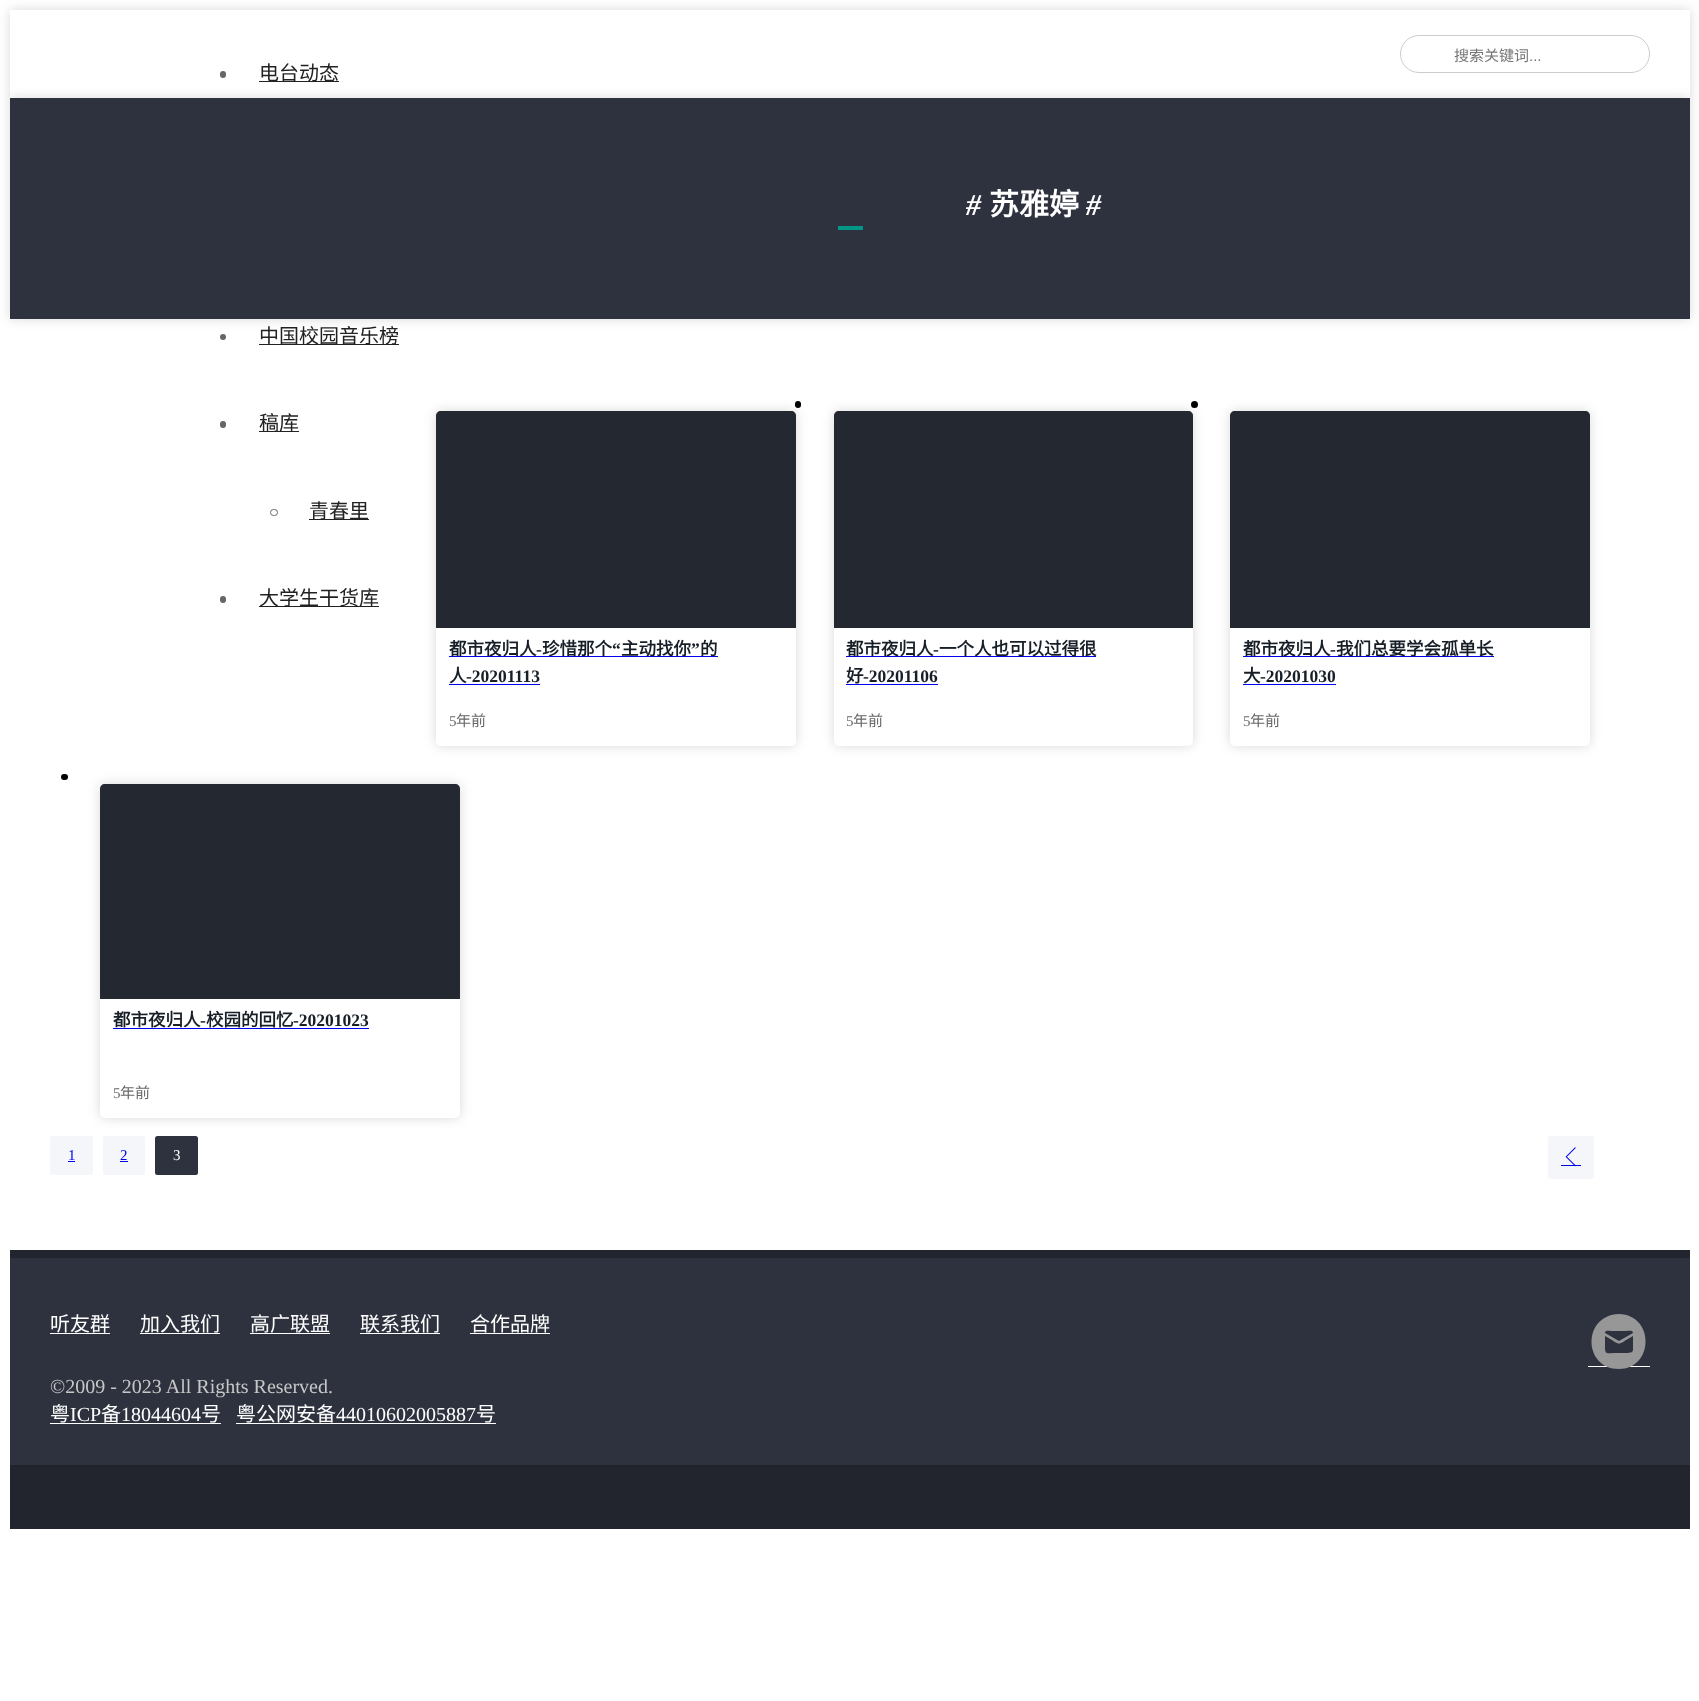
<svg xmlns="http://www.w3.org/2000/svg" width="1699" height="1701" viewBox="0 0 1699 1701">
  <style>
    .t1 { font: 15px Noto Sans CJK SC; fill: #757575; }
    .t2 { font: 15px Liberation Sans; fill: #757575; }
    .t3 { font: 20px Noto Sans CJK SC; fill: #222; }
    .t4 { font: italic bold 30px Liberation Serif; fill: #fff; }
    .t5 { font: bold 30px Noto Sans CJK SC; fill: #fff; }
    .t6 { font: bold 17.5px Noto Sans CJK SC; fill: #161e27; }
    .t7 { font: bold 17.5px Liberation Serif; fill: #161e27; }
    .t8 { font: 15px Liberation Serif; fill: #666; }
    .t9 { font: 15px Noto Sans CJK SC; fill: #666; }
    .t10 { font: 15px Liberation Serif; fill: #00e; }
    .t11 { font: 15px Liberation Serif; fill: #fff; }
    .t12 { font: 20px Noto Sans CJK SC; fill: #fff; }
    .t13 { font: 20px Liberation Serif; fill: #c7c7c7; }
    .t14 { font: 20px Liberation Serif; fill: #fff; }
  </style>
  <rect width="100%" height="100%" fill="#fff"/>
  <rect x="10" y="10" width="1680" height="88" fill="#00000026" filter="blur(6px)"/>
  <rect x="10" y="10" width="1680" height="88" fill="#fff"/>
  <rect x="1400.5" y="35.5" width="249" height="37" rx="18.5" fill="none" stroke="#ccc"/>
  <text x="1454" y="61" class="t1">搜索关键词</text>
  <text x="1529" y="61" class="t2">...</text>
  <rect x="190" y="98" width="228" height="9" fill="#fff"/>
  <rect x="220" y="71" width="6" height="7" rx="3" fill="#666"/>
  <rect x="259" y="81" width="80" height="1" fill="#222"/>
  <text x="259" y="80" class="t3">电台动态</text>
  <circle cx="223" cy="337" r="3" fill="#666"/>
  <rect x="259" y="344" width="140" height="1" fill="#222"/>
  <text x="259" y="343" class="t3">中国校园音乐榜</text>
  <rect x="220" y="421" width="6" height="7" rx="3" fill="#666"/>
  <rect x="259" y="431" width="40" height="1" fill="#222"/>
  <text x="259" y="430" class="t3">稿库</text>
  <rect x="270.5" y="509.5" width="7" height="6" rx="3" fill="none" stroke="#666"/>
  <rect x="309" y="519" width="60" height="1" fill="#222"/>
  <text x="309" y="518" class="t3">青春里</text>
  <rect x="220" y="596" width="6" height="7" rx="3" fill="#666"/>
  <rect x="259" y="606" width="120" height="1" fill="#222"/>
  <text x="259" y="605" class="t3">大学生干货库</text>
  <rect x="10" y="98" width="1680" height="221" fill="#00000026" filter="blur(6px)"/>
  <rect x="10" y="98" width="1680" height="221" fill="#2e323e"/>
  <text x="966" y="215" class="t4">#</text>
  <text x="989" y="215" class="t5">苏雅婷</text>
  <text x="1086" y="215" class="t4">#</text>
  <rect x="838" y="226" width="25" height="4" fill="#009688"/>
  <rect x="795" y="401" width="6" height="7" rx="3" fill="#000"/>
  <rect x="436" y="411" width="360" height="335" rx="5" fill="#00000026" filter="blur(6px)"/>
  <rect x="436" y="411" width="360" height="335" rx="5" fill="#fff"/>
  <path d="M441 411H791C794 411 796 413 796 416V628H436V416C436 413 438 411 441 411Z" fill="#2e323e"/>
  <path d="M441 411H791C794 411 796 413 796 416V628H436V416C436 413 438 411 441 411Z" fill="#00000033"/>
  <rect x="449" y="656" width="269" height="1" fill="#00e"/>
  <text x="449" y="655" class="t6">都市夜归人</text>
  <text x="542" y="655" class="t6">珍惜那个</text>
  <text x="612" y="655" class="t7">“</text>
  <text x="621" y="655" class="t6">主动找你</text>
  <text x="691" y="655" class="t7">”</text>
  <text x="700" y="655" class="t6">的</text>
  <text x="536" y="655" class="t7">-</text>
  <text x="449" y="682" class="t6">人</text>
  <text x="466" y="682" class="t7">-20201113</text>
  <rect x="449" y="684" width="91" height="1" fill="#00e"/>
  <text x="449" y="726" class="t8">5</text>
  <text x="456" y="726" class="t9">年前</text>
  <circle cx="1194.5" cy="404.5" r="3.5" fill="#000"/>
  <rect x="834" y="411" width="359" height="335" rx="5" fill="#00000026" filter="blur(6px)"/>
  <rect x="834" y="411" width="359" height="335" rx="5" fill="#fff"/>
  <path d="M839 411H1188C1191 411 1193 413 1193 416V628H834V416C834 413 836 411 839 411Z" fill="#2e323e"/>
  <path d="M839 411H1188C1191 411 1193 413 1193 416V628H834V416C834 413 836 411 839 411Z" fill="#00000033"/>
  <rect x="846" y="656" width="250" height="1" fill="#00e"/>
  <text x="846" y="655" class="t6">都市夜归人</text>
  <text x="933" y="655" class="t7">-</text>
  <text x="939" y="655" class="t6">一个人也可以过得很</text>
  <text x="846" y="682" class="t6">好</text>
  <text x="863" y="682" class="t7">-20201106</text>
  <rect x="846" y="684" width="92" height="1" fill="#00e"/>
  <text x="846" y="726" class="t8">5</text>
  <text x="853" y="726" class="t9">年前</text>
  <rect x="1230" y="411" width="360" height="335" rx="5" fill="#00000026" filter="blur(6px)"/>
  <rect x="1230" y="411" width="360" height="335" rx="5" fill="#fff"/>
  <path d="M1235 411H1585C1588 411 1590 413 1590 416V628H1230V416C1230 413 1232 411 1235 411Z" fill="#2e323e"/>
  <path d="M1235 411H1585C1588 411 1590 413 1590 416V628H1230V416C1230 413 1232 411 1235 411Z" fill="#00000033"/>
  <rect x="1243" y="656" width="251" height="1" fill="#00e"/>
  <text x="1243" y="655" class="t6">都市夜归人</text>
  <text x="1330" y="655" class="t7">-</text>
  <text x="1336" y="655" class="t6">我们总要学会孤单长</text>
  <text x="1243" y="682" class="t6">大</text>
  <text x="1260" y="682" class="t7">-20201030</text>
  <rect x="1243" y="684" width="93" height="1" fill="#00e"/>
  <text x="1243" y="726" class="t8">5</text>
  <text x="1250" y="726" class="t9">年前</text>
  <rect x="61" y="774" width="7" height="6" rx="3" fill="#000"/>
  <rect x="100" y="784" width="360" height="334" rx="5" fill="#00000026" filter="blur(6px)"/>
  <rect x="100" y="784" width="360" height="334" rx="5" fill="#fff"/>
  <path d="M105 784H455C458 784 460 786 460 789V999H100V789C100 786 102 784 105 784Z" fill="#2e323e"/>
  <path d="M105 784H455C458 784 460 786 460 789V999H100V789C100 786 102 784 105 784Z" fill="#00000033"/>
  <text x="113" y="1026" class="t6">都市夜归人</text>
  <text x="200" y="1026" class="t7">-</text>
  <rect x="113" y="1028" width="256" height="1" fill="#00e"/>
  <text x="206" y="1026" class="t6">校园的回忆</text>
  <text x="293" y="1026" class="t7">-20201023</text>
  <text x="113" y="1098" class="t8">5</text>
  <text x="120" y="1098" class="t9">年前</text>
  <rect x="50" y="1136" width="43" height="39" rx="2.5" fill="#f4f6f9"/>
  <text x="68" y="1160" class="t10">1</text>
  <rect x="68" y="1161" width="7" height="1" fill="#00e"/>
  <rect x="103" y="1136" width="42" height="39" rx="2.5" fill="#f4f6f9"/>
  <text x="120" y="1160" class="t10">2</text>
  <rect x="120" y="1161" width="8" height="1" fill="#00e"/>
  <rect x="155" y="1136" width="43" height="39" rx="2.5" fill="#2e323e"/>
  <text x="173" y="1160" class="t11">3</text>
  <rect x="1548" y="1136" width="46" height="43" rx="2.5" fill="#f4f6f9"/>
  <rect x="1561" y="1165" width="20" height="1" fill="#00e"/>
  <image x="1565" y="1147" width="11" height="20" href="images/1.png"/>
  <rect x="10" y="1258" width="1680" height="207" fill="#2e323e"/>
  <rect x="10" y="1250" width="1680" height="8" fill="#22252d"/>
  <text x="50" y="1331" class="t12">听友群</text>
  <rect x="50" y="1333" width="60" height="1" fill="#fff"/>
  <text x="140" y="1331" class="t12">加入我们</text>
  <rect x="140" y="1333" width="80" height="1" fill="#fff"/>
  <text x="250" y="1331" class="t12">高广联盟</text>
  <rect x="250" y="1333" width="80" height="1" fill="#fff"/>
  <text x="360" y="1331" class="t12">联系我们</text>
  <rect x="360" y="1333" width="80" height="1" fill="#fff"/>
  <text x="470" y="1331" class="t12">合作品牌</text>
  <rect x="470" y="1333" width="80" height="1" fill="#fff"/>
  <rect x="1588" y="1366" width="62" height="1" fill="#fff"/>
  <path d="M1619 1314C1582 1315 1583 1369 1619 1369C1654 1369 1655 1315 1619 1314ZM1633 1350C1633 1353 1628 1353 1626 1353H1615C1608 1353 1605 1355 1605 1348V1336C1623 1346 1615 1346 1633 1336ZM1619 1341L1605 1333C1605 1330 1609 1331 1611 1331H1626C1629 1331 1633 1330 1633 1333Z" fill="#989797"/>
  <text x="50" y="1393" class="t13">©2009 - 2023 All Rights Reserved.</text>
  <text x="50" y="1421" class="t12">粤</text>
  <text x="70" y="1421" class="t14">ICP</text>
  <rect x="50" y="1423" width="171" height="1" fill="#fff"/>
  <text x="101" y="1421" class="t12">备</text>
  <text x="121" y="1421" class="t14">18044604</text>
  <text x="201" y="1421" class="t12">号</text>
  <text x="236" y="1421" class="t12">粤公网安备</text>
  <text x="336" y="1421" class="t14">44010602005887</text>
  <rect x="236" y="1423" width="260" height="1" fill="#fff"/>
  <text x="476" y="1421" class="t12">号</text>
  <rect x="10" y="1466" width="1680" height="63" fill="#22252d"/>
  <rect x="10" y="1465" width="1680" height="1" fill="#1f2229"/>
</svg>
